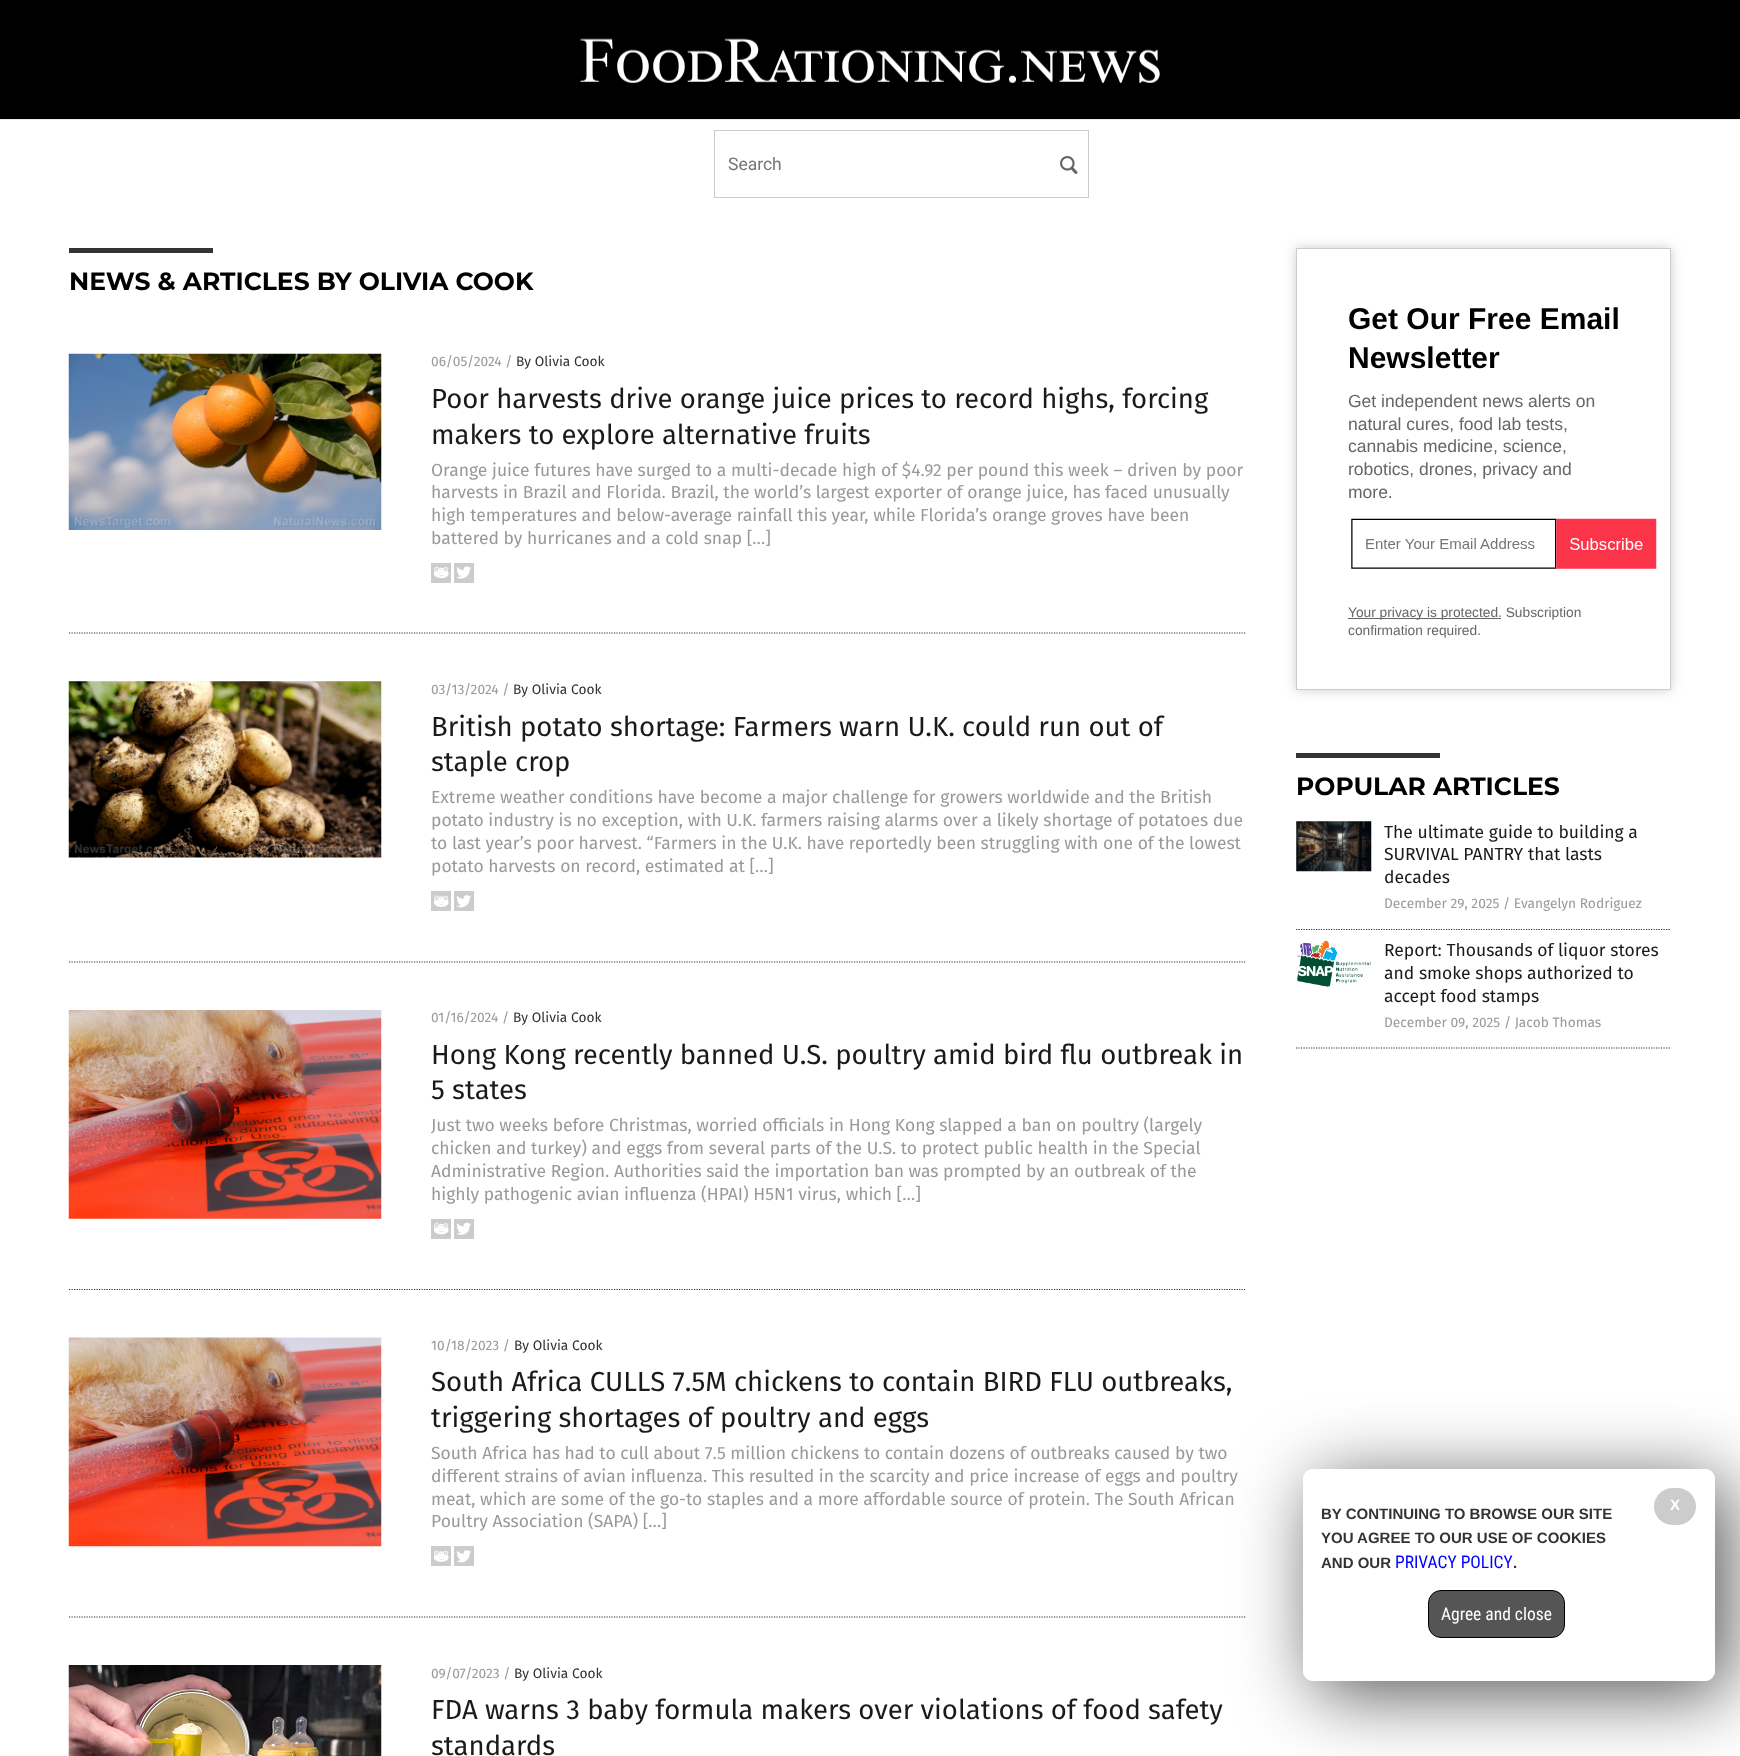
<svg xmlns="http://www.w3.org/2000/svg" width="1740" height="1756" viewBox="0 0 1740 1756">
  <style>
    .t1 { font: 17.5px Roboto; fill: #757575; }
    .t2 { font: bold 25px Montserrat; fill: #000; }
    .t3 { font: 13.75px Fira Sans; fill: #999; }
    .t4 { font: 13.75px Fira Sans; fill: #333; }
    .t5 { font: 27.5px Fira Sans; fill: #1a1a1a; }
    .t6 { font: 17.5px Fira Sans; fill: #999; }
    .t7 { font: bold 30px Liberation Sans; fill: #000; }
    .t8 { font: 17.5px Liberation Sans; fill: #666; }
    .t9 { font: 13.75px Liberation Sans; fill: #666; }
    .t10 { font: 17.5px Fira Sans; fill: #1a1a1a; }
    .t11 { font: bold 15px Liberation Sans; fill: #fff; }
    .t12 { font: bold 15px Liberation Sans; fill: #333; }
    .t13 { font: 17.5px Roboto Condensed; fill: #00f; }
    .t14 { font: 17.5px Roboto Condensed; fill: #fff; }
  </style>
  <defs>
    <clipPath id="clip1"><path d="M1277 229H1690V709H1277ZM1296 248H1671V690H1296Z" clip-rule="evenodd"/></clipPath>
    <clipPath id="clip2"><path d="M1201 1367H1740V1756H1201ZM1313 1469H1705C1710.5 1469 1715 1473.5 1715 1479V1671C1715 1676.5 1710.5 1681 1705 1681H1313C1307.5 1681 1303 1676.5 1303 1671V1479C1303 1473.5 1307.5 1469 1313 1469Z" clip-rule="evenodd"/></clipPath>
  </defs>
  <rect width="100%" height="100%" fill="#000"/>
  <image x="580" y="38" width="580" height="45" href="images/1.png"/>
  <rect x="0" y="120" width="1740" height="1636" fill="#fff"/>
  <rect x="0" y="119" width="1740" height="1" fill="#ececec"/>
  <rect x="714.5" y="130.5" width="374" height="67" fill="none" stroke="#ccc"/>
  <text x="728" y="170" class="t1">Search</text>
  <image x="1060" y="156" width="18" height="18" href="images/2.png"/>
  <rect x="69" y="248" width="144" height="5" fill="#343434"/>
  <text x="69" y="290" class="t2">NEWS &amp; ARTICLES BY OLIVIA COOK</text>
  <path d="M69 633H1246" fill="none" stroke="#343434" stroke-width="1.2" stroke-dasharray="1.25 1.25"/>
  <image x="68" y="353" width="314" height="177" href="images/3.png"/>
  <text x="431" y="366" class="t3">06/05/2024 /</text>
  <text x="516" y="366" class="t4">By Olivia Cook</text>
  <text x="431" y="408" class="t5">Poor harvests drive orange juice prices to record highs, forcing</text>
  <text x="431" y="444" class="t5">makers to explore alternative fruits</text>
  <text x="431" y="476" class="t6">Orange juice futures have surged to a multi-decade high of $4.92 per pound this week – driven by poor</text>
  <text x="431" y="498" class="t6">harvests in Brazil and Florida. Brazil, the world’s largest exporter of orange juice, has faced unusually</text>
  <text x="431" y="521" class="t6">high temperatures and below-average rainfall this year, while Florida’s orange groves have been</text>
  <text x="431" y="544" class="t6">battered by hurricanes and a cold snap […]</text>
  <image x="431" y="563" width="20" height="20" href="images/4.png"/>
  <image x="454" y="563" width="20" height="20" href="images/5.png"/>
  <path d="M69 962H1246" fill="none" stroke="#343434" stroke-width="1.2" stroke-dasharray="1.25 1.25"/>
  <image x="68" y="681" width="314" height="177" href="images/6.png"/>
  <text x="431" y="694" class="t3">03/13/2024 /</text>
  <text x="513" y="694" class="t4">By Olivia Cook</text>
  <text x="431" y="736" class="t5">British potato shortage: Farmers warn U.K. could run out of</text>
  <text x="431" y="771" class="t5">staple crop</text>
  <text x="431" y="803" class="t6">Extreme weather conditions have become a major challenge for growers worldwide and the British</text>
  <text x="431" y="826" class="t6">potato industry is no exception, with U.K. farmers raising alarms over a likely shortage of potatoes due</text>
  <text x="431" y="849" class="t6">to last year’s poor harvest. “Farmers in the U.K. have reportedly been struggling with one of the lowest</text>
  <text x="431" y="872" class="t6">potato harvests on record, estimated at […]</text>
  <image x="431" y="891" width="20" height="20" href="images/7.png"/>
  <image x="454" y="891" width="20" height="20" href="images/8.png"/>
  <path d="M69 1289.5H1246" fill="none" stroke="#343434" stroke-width="1.2" stroke-dasharray="1.25 1.25"/>
  <image x="68" y="1010" width="314" height="209" href="images/9.png"/>
  <text x="431" y="1022" class="t3">01/16/2024 /</text>
  <text x="513" y="1022" class="t4">By Olivia Cook</text>
  <text x="431" y="1064" class="t5">Hong Kong recently banned U.S. poultry amid bird flu outbreak in</text>
  <text x="431" y="1099" class="t5">5 states</text>
  <text x="431" y="1131" class="t6">Just two weeks before Christmas, worried officials in Hong Kong slapped a ban on poultry (largely</text>
  <text x="431" y="1154" class="t6">chicken and turkey) and eggs from several parts of the U.S. to protect public health in the Special</text>
  <text x="431" y="1177" class="t6">Administrative Region. Authorities said the importation ban was prompted by an outbreak of the</text>
  <text x="431" y="1200" class="t6">highly pathogenic avian influenza (HPAI) H5N1 virus, which […]</text>
  <image x="431" y="1219" width="20" height="20" href="images/10.png"/>
  <image x="454" y="1219" width="20" height="20" href="images/11.png"/>
  <path d="M69 1617H1246" fill="none" stroke="#343434" stroke-width="1.2" stroke-dasharray="1.25 1.25"/>
  <image x="68" y="1337" width="314" height="210" href="images/12.png"/>
  <text x="431" y="1350" class="t3">10/18/2023 /</text>
  <text x="514" y="1350" class="t4">By Olivia Cook</text>
  <text x="431" y="1391" class="t5">South Africa CULLS 7.5M chickens to contain BIRD FLU outbreaks,</text>
  <text x="431" y="1427" class="t5">triggering shortages of poultry and eggs</text>
  <text x="431" y="1459" class="t6">South Africa has had to cull about 7.5 million chickens to contain dozens of outbreaks caused by two</text>
  <text x="431" y="1482" class="t6">different strains of avian influenza. This resulted in the scarcity and price increase of eggs and poultry</text>
  <text x="431" y="1505" class="t6">meat, which are some of the go-to staples and a more affordable source of protein. The South African</text>
  <text x="431" y="1527" class="t6">Poultry Association (SAPA) […]</text>
  <image x="431" y="1546" width="20" height="20" href="images/7.png"/>
  <image x="454" y="1546" width="20" height="20" href="images/8.png"/>
  <image x="68" y="1665" width="314" height="91" href="images/13.png"/>
  <text x="431" y="1678" class="t3">09/07/2023 /</text>
  <text x="514" y="1678" class="t4">By Olivia Cook</text>
  <text x="431" y="1719" class="t5">FDA warns 3 baby formula makers over violations of food safety</text>
  <text x="431" y="1755" class="t5">standards</text>
  <g clip-path="url(#clip1)">
    <rect x="1296" y="248" width="375" height="442" fill="#ccc" filter="blur(6px)"/>
  </g>
  <rect x="1296.5" y="248.5" width="374" height="441" fill="none" stroke="#ccc"/>
  <text x="1348" y="329" class="t7">Get Our Free Email</text>
  <text x="1348" y="368" class="t7">Newsletter</text>
  <text x="1348" y="407" class="t8">Get independent news alerts on</text>
  <text x="1348" y="430" class="t8">natural cures, food lab tests,</text>
  <text x="1348" y="452" class="t8">cannabis medicine, science,</text>
  <text x="1348" y="475" class="t8">robotics, drones, privacy and</text>
  <text x="1348" y="498" class="t8">more.</text>
  <image x="1351" y="518" width="306" height="51" href="images/14.png"/>
  <rect x="1348" y="618" width="153" height="1" fill="#666"/>
  <text x="1348" y="617" class="t9">Your privacy is protected. Subscription</text>
  <text x="1348" y="635" class="t9">confirmation required.</text>
  <rect x="1296" y="753" width="144" height="5" fill="#343434"/>
  <text x="1296" y="795" class="t2">POPULAR ARTICLES</text>
  <path d="M1296 929.5H1671" fill="none" stroke="#343434" stroke-width="1.2" stroke-dasharray="1.25 1.25"/>
  <image x="1296" y="821" width="76" height="51" href="images/15.png"/>
  <text x="1384" y="838" class="t10">The ultimate guide to building a</text>
  <text x="1384" y="860" class="t10">SURVIVAL PANTRY that lasts</text>
  <text x="1384" y="883" class="t10">decades</text>
  <text x="1384" y="908" class="t3">December 29, 2025 / Evangelyn Rodriguez</text>
  <path d="M1296 1048H1671" fill="none" stroke="#343434" stroke-width="1.2" stroke-dasharray="1.25 1.25"/>
  <image x="1297" y="940" width="74" height="47" href="images/16.png"/>
  <text x="1384" y="956" class="t10">Report: Thousands of liquor stores</text>
  <text x="1384" y="979" class="t10">and smoke shops authorized to</text>
  <text x="1384" y="1002" class="t10">accept food stamps</text>
  <text x="1384" y="1027" class="t3">December 09, 2025 / Jacob Thomas</text>
  <g clip-path="url(#clip2)">
    <rect x="1315" y="1481" width="413" height="213" rx="10" fill="#555" filter="blur(37.5px)"/>
  </g>
  <rect x="1303" y="1469" width="412" height="212" rx="10" fill="#ffffffe6"/>
  <rect x="1654" y="1488" width="42" height="37" rx="18.5" fill="#ccc"/>
  <text x="1670" y="1510" class="t11">X</text>
  <text x="1321" y="1519" class="t12">BY CONTINUING TO BROWSE OUR SITE</text>
  <text x="1321" y="1543" class="t12">YOU AGREE TO OUR USE OF COOKIES</text>
  <text x="1321" y="1568" class="t12">AND OUR</text>
  <text x="1395" y="1568" class="t13">PRIVACY POLICY</text>
  <text x="1513" y="1568" class="t12">.</text>
  <rect x="1428.5" y="1590.5" width="136" height="47" rx="12.5" fill="#555" stroke="#000"/>
  <text x="1441" y="1620" class="t14">Agree and close</text>
</svg>
